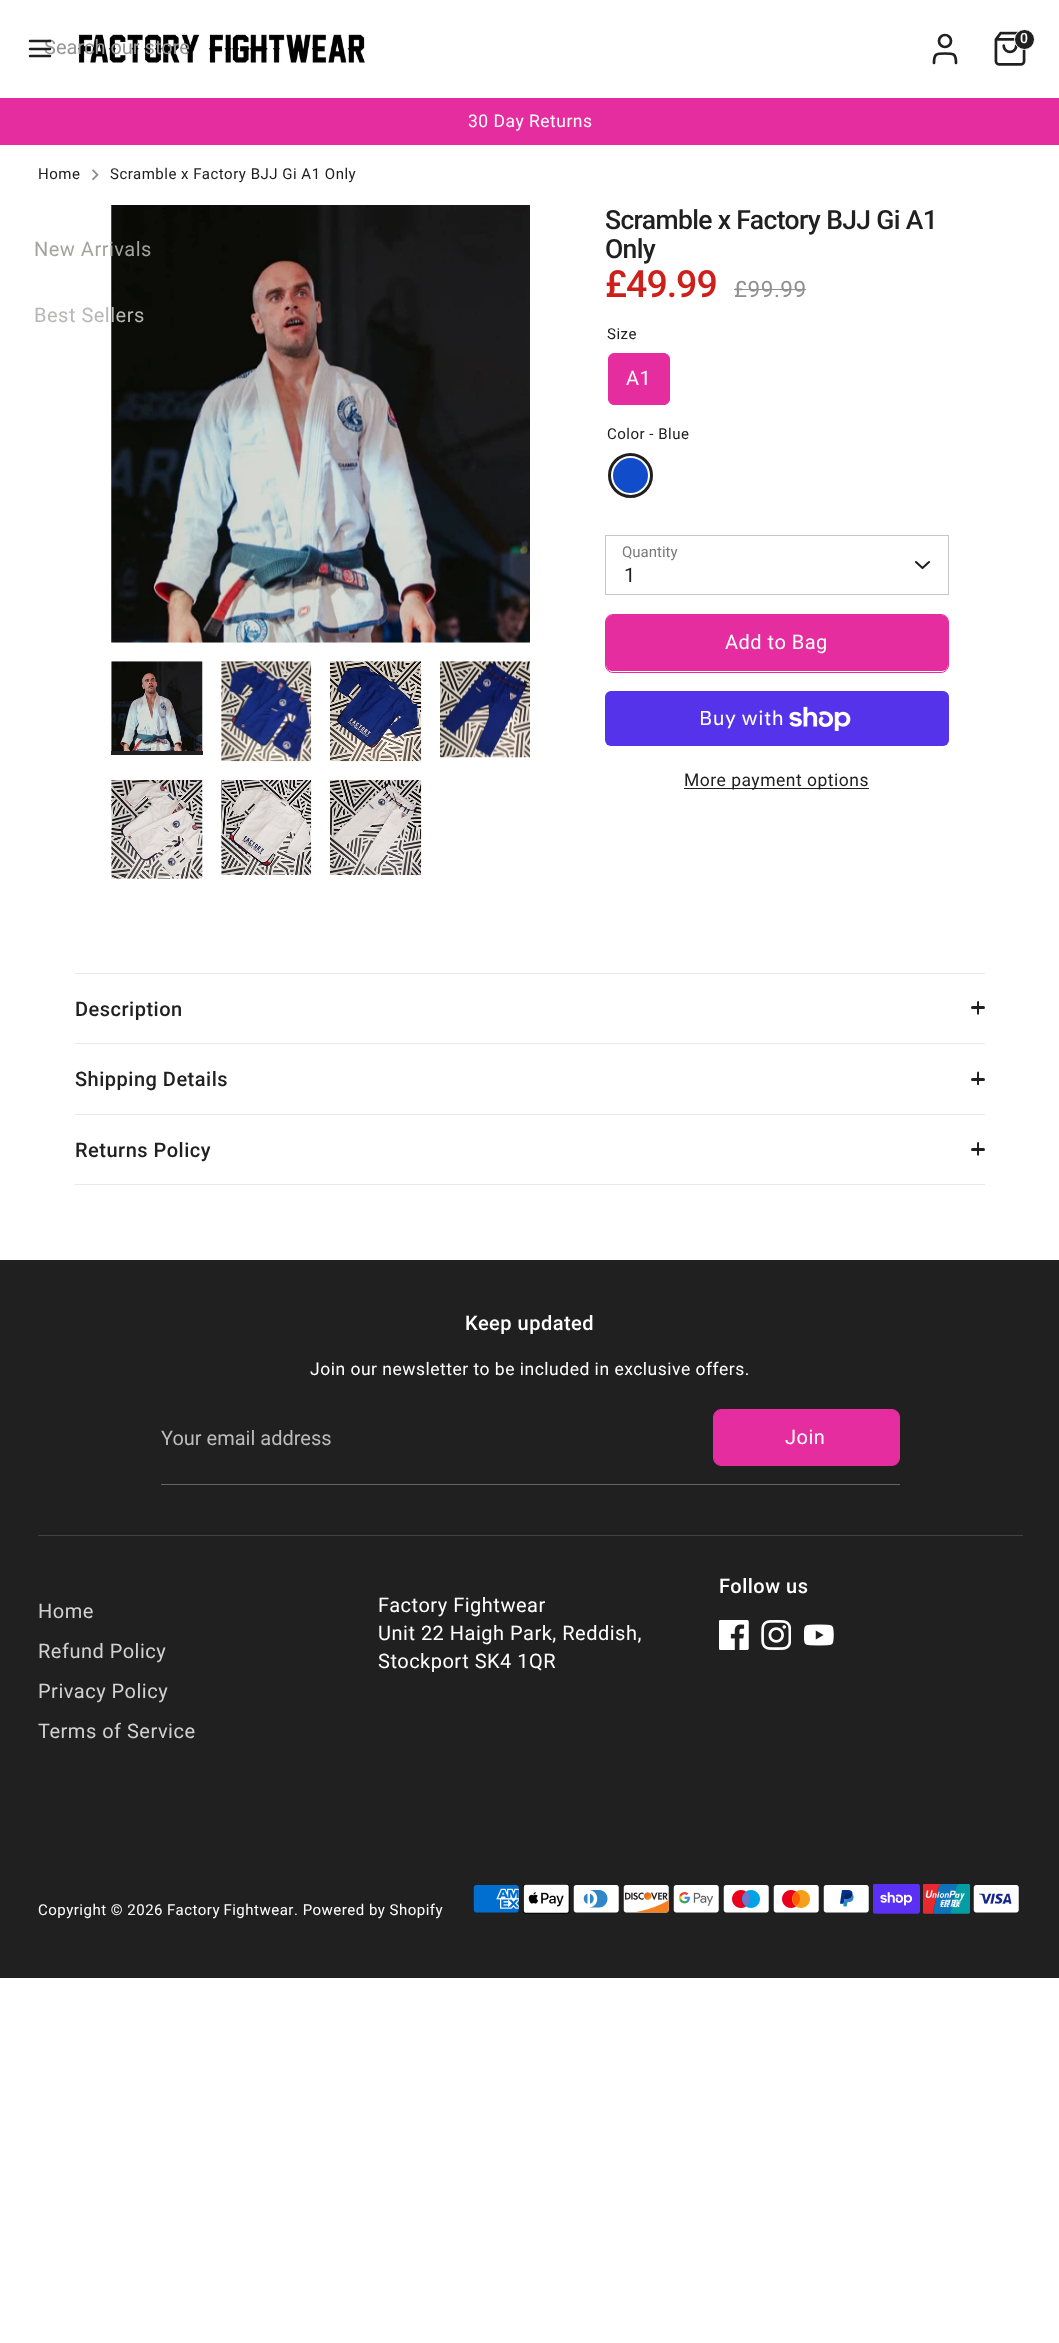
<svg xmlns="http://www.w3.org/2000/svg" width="1059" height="2343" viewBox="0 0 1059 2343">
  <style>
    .t1 { font: 20px Roboto; fill: #969696; }
    .t2 { font: 500 14px Roboto; fill: #fff; }
    .t3 { font: 17.5px Roboto; letter-spacing: 0.5px; fill: #fff; }
    .t4 { font: 20px Roboto; letter-spacing: 0.5px; fill: #a3a3a1; }
    .t5 { font: 20px Roboto; letter-spacing: 0.5px; fill: #b7b7b6; }
    .t6 { font: 15px Roboto; letter-spacing: 0.5px; fill: #202020; }
    .t7 { font: 500 26.5px Roboto; letter-spacing: -0.65px; fill: #202020; }
    .t8 { font: 500 37.5px Roboto; letter-spacing: -1px; fill: #cd201a; }
    .t9 { font: 22.5px Roboto; letter-spacing: 0.5px; fill: #909090; }
    .t10 { font: 20px Roboto; letter-spacing: 0.5px; fill: #fff; }
    .t11 { font: 15px Roboto; fill: #797979; }
    .t12 { font: 20px Roboto; letter-spacing: 0.5px; fill: #202020; }
    .t13 { font: 20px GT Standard; letter-spacing: 0.5px; fill: #fff; }
    .t14 { font: 17.5px Roboto; letter-spacing: 0.5px; fill: #202020; }
    .t15 { font: 500 20px Roboto; letter-spacing: 0.5px; fill: #202020; }
    .t16 { font: 500 20px Roboto; letter-spacing: 0.5px; fill: #fff; }
    .t17 { font: 20px Roboto; fill: #bcbcbc; }
    .t18 { font: 20px Roboto; letter-spacing: 0.5px; fill: #d2d2d2; }
    .t19 { font: 15px Roboto; letter-spacing: 0.5px; fill: #fff; }
  </style>
  <rect width="100%" height="100%" fill="#fff"/>
  <image x="77" y="34" width="288" height="29" href="images/2.png"/>
  <text x="44" y="54" class="t1">Search our store</text>
  <path d="M956 63C956 53.5 953.5 53.5 945 53.5C936.5 53.5 934 53.5 934 63" fill="none" stroke="#202020" stroke-width="2.7" stroke-linecap="round" stroke-linejoin="round"/>
  <circle cx="945" cy="41" r="6" fill="none" stroke="#202020" stroke-width="2.7"/>
  <image x="994" y="31" width="32" height="35" href="images/1.png"/>
  <circle cx="1024.5" cy="39.5" r="10" fill="#202020" stroke="#fff"/>
  <text x="1020" y="43" class="t2">0</text>
  <path d="M30 49H50M30 41H50M30 56H50" fill="none" stroke="#202020" stroke-width="2.5" stroke-linecap="round" stroke-linejoin="round"/>
  <rect x="0" y="98" width="1059" height="47" fill="#e62da0"/>
  <text x="468" y="127" class="t3">30 Day Returns</text>
  <image x="111" y="205" width="419" height="438" href="images/4.png"/>
  <text x="34" y="256" class="t4">New Arrivals</text>
  <text x="34" y="322" class="t5">Best Sellers</text>
  <text x="38" y="179" class="t6">Home</text>
  <image x="92" y="169" width="7" height="12" href="images/3.png"/>
  <text x="110" y="179" class="t6">Scramble x Factory BJJ Gi A1 Only</text>
  <image x="111" y="661" width="92" height="90" href="images/5.png"/>
  <rect x="111" y="751" width="92" height="4" fill="#202020"/>
  <image x="221" y="661" width="91" height="101" href="images/6.png"/>
  <image x="330" y="661" width="92" height="101" href="images/7.png"/>
  <image x="440" y="661" width="90" height="97" href="images/8.png"/>
  <image x="111" y="780" width="92" height="99" href="images/9.png"/>
  <image x="221" y="780" width="91" height="95" href="images/10.png"/>
  <image x="330" y="780" width="92" height="95" href="images/11.png"/>
  <text x="605" y="229" class="t7">Scramble x Factory BJJ Gi A1</text>
  <text x="605" y="258" class="t7">Only</text>
  <text x="605" y="297" class="t8">£49.99</text>
  <text x="734" y="297" class="t9">£99.99</text>
  <rect x="734" y="289" width="72" height="1" fill="#909090"/>
  <text x="607" y="339" class="t6">Size</text>
  <rect x="608.5" y="353.5" width="61" height="51" rx="5.5" fill="#e62da0" stroke="#e62da0"/>
  <text x="626" y="385" class="t10">A1</text>
  <text x="607" y="439" class="t6">Color - Blue</text>
  <circle cx="630.5" cy="475.5" r="21" fill="none" stroke="#202020" stroke-width="3"/>
  <circle cx="630.5" cy="475.5" r="17.5" fill="#114dca"/>
  <text x="622" y="557" class="t11">Quantity</text>
  <rect x="605.5" y="535.5" width="343" height="59" fill="none" stroke="#c7c7c7"/>
  <path d="M916 562L922.5 568L929 562" fill="none" stroke="#202020" stroke-width="2.1" stroke-linecap="round" stroke-linejoin="round"/>
  <text x="624" y="582" class="t12">1</text>
  <rect x="605.5" y="614.5" width="343" height="58" rx="7.5" fill="none" stroke="#e62da0"/>
  <rect x="606" y="615" width="342" height="56" rx="6" fill="#e62da0"/>
  <text x="725" y="649" class="t10">Add to Bag</text>
  <rect x="605" y="691" width="344" height="55" rx="6" fill="#5433eb"/>
  <text x="699" y="725" class="t13">Buy with</text>
  <image x="789" y="706" width="62" height="25" href="images/12.png"/>
  <rect x="684" y="788" width="185" height="1" fill="#202020"/>
  <text x="684" y="786" class="t14">More payment options</text>
  <rect x="75" y="973" width="910" height="1" fill="#e9e9e9"/>
  <rect x="75" y="1043" width="910" height="1" fill="#e9e9e9"/>
  <text x="75" y="1016" class="t15">Description</text>
  <path d="M977 1013.5V1002C977.5 1001 978.5 1000.5 979 1001.5V1014C979 1015 977 1015 977 1013.5Z" fill="#202020"/>
  <rect x="971" y="1006" width="14" height="3" rx="1.5" fill="#202020"/>
  <rect x="75" y="1114" width="910" height="1" fill="#e9e9e9"/>
  <text x="75" y="1086" class="t15">Shipping Details</text>
  <path d="M977 1084V1072.5C977.5 1071.5 978.5 1071 979 1072V1084.5C979 1085.5 977 1085.5 977 1084Z" fill="#202020"/>
  <rect x="971" y="1078" width="14" height="3" rx="1.5" fill="#202020"/>
  <rect x="75" y="1184" width="910" height="1" fill="#e9e9e9"/>
  <text x="75" y="1157" class="t15">Returns Policy</text>
  <path d="M977 1154.5V1143C977.5 1142 978.5 1141.5 979 1142.5V1155C979 1156 977 1156 977 1154.5Z" fill="#202020"/>
  <rect x="971" y="1148" width="14" height="3" rx="1.5" fill="#202020"/>
  <rect x="0" y="1260" width="1059" height="718" fill="#202020"/>
  <text x="465" y="1330" class="t16">Keep updated</text>
  <text x="310" y="1375" class="t3">Join our newsletter to be included in exclusive offers.</text>
  <rect x="161" y="1484" width="739" height="1" fill="#636363"/>
  <text x="161" y="1445" class="t17">Your email address</text>
  <rect x="713.5" y="1409.5" width="186" height="56" rx="7.5" fill="none" stroke="#e62da0"/>
  <rect x="714" y="1410" width="185" height="55" rx="6" fill="#e62da0"/>
  <text x="785" y="1444" class="t10">Join</text>
  <rect x="38" y="1535" width="985" height="1" fill="#414141"/>
  <text x="719" y="1593" class="t16">Follow us</text>
  <image x="719" y="1620" width="30" height="30" href="images/13.png"/>
  <image x="761" y="1620" width="30" height="30" href="images/14.png"/>
  <image x="804" y="1624" width="30" height="22" href="images/15.png"/>
  <text x="38" y="1618" class="t18">Home</text>
  <text x="38" y="1658" class="t18">Refund Policy</text>
  <text x="38" y="1698" class="t18">Privacy Policy</text>
  <text x="38" y="1738" class="t18">Terms of Service</text>
  <text x="378" y="1612" class="t10">Factory Fightwear</text>
  <text x="378" y="1640" class="t10">Unit 22 Haigh Park, Reddish,</text>
  <text x="378" y="1668" class="t10">Stockport SK4 1QR</text>
  <text x="38" y="1915" class="t19">Copyright © 2026</text>
  <text x="167" y="1915" word-spacing="-1" class="t19">Factory Fightwear</text>
  <text x="294" y="1915" class="t19">. Powered by Shopify</text>
  <image x="473" y="1885" width="46" height="28" href="images/16.png"/>
  <image x="523" y="1884" width="47" height="30" href="images/17.png"/>
  <image x="573" y="1885" width="46" height="28" href="images/18.png"/>
  <image x="623" y="1885" width="46" height="28" href="images/19.png"/>
  <image x="673" y="1885" width="46" height="28" href="images/20.png"/>
  <image x="723" y="1885" width="46" height="28" href="images/21.png"/>
  <image x="773" y="1885" width="46" height="28" href="images/22.png"/>
  <image x="823" y="1885" width="46" height="28" href="images/23.png"/>
  <image x="873" y="1884" width="47" height="30" href="images/24.png"/>
  <image x="923" y="1884" width="47" height="30" href="images/25.png"/>
  <image x="973" y="1885" width="46" height="28" href="images/26.png"/>
</svg>
